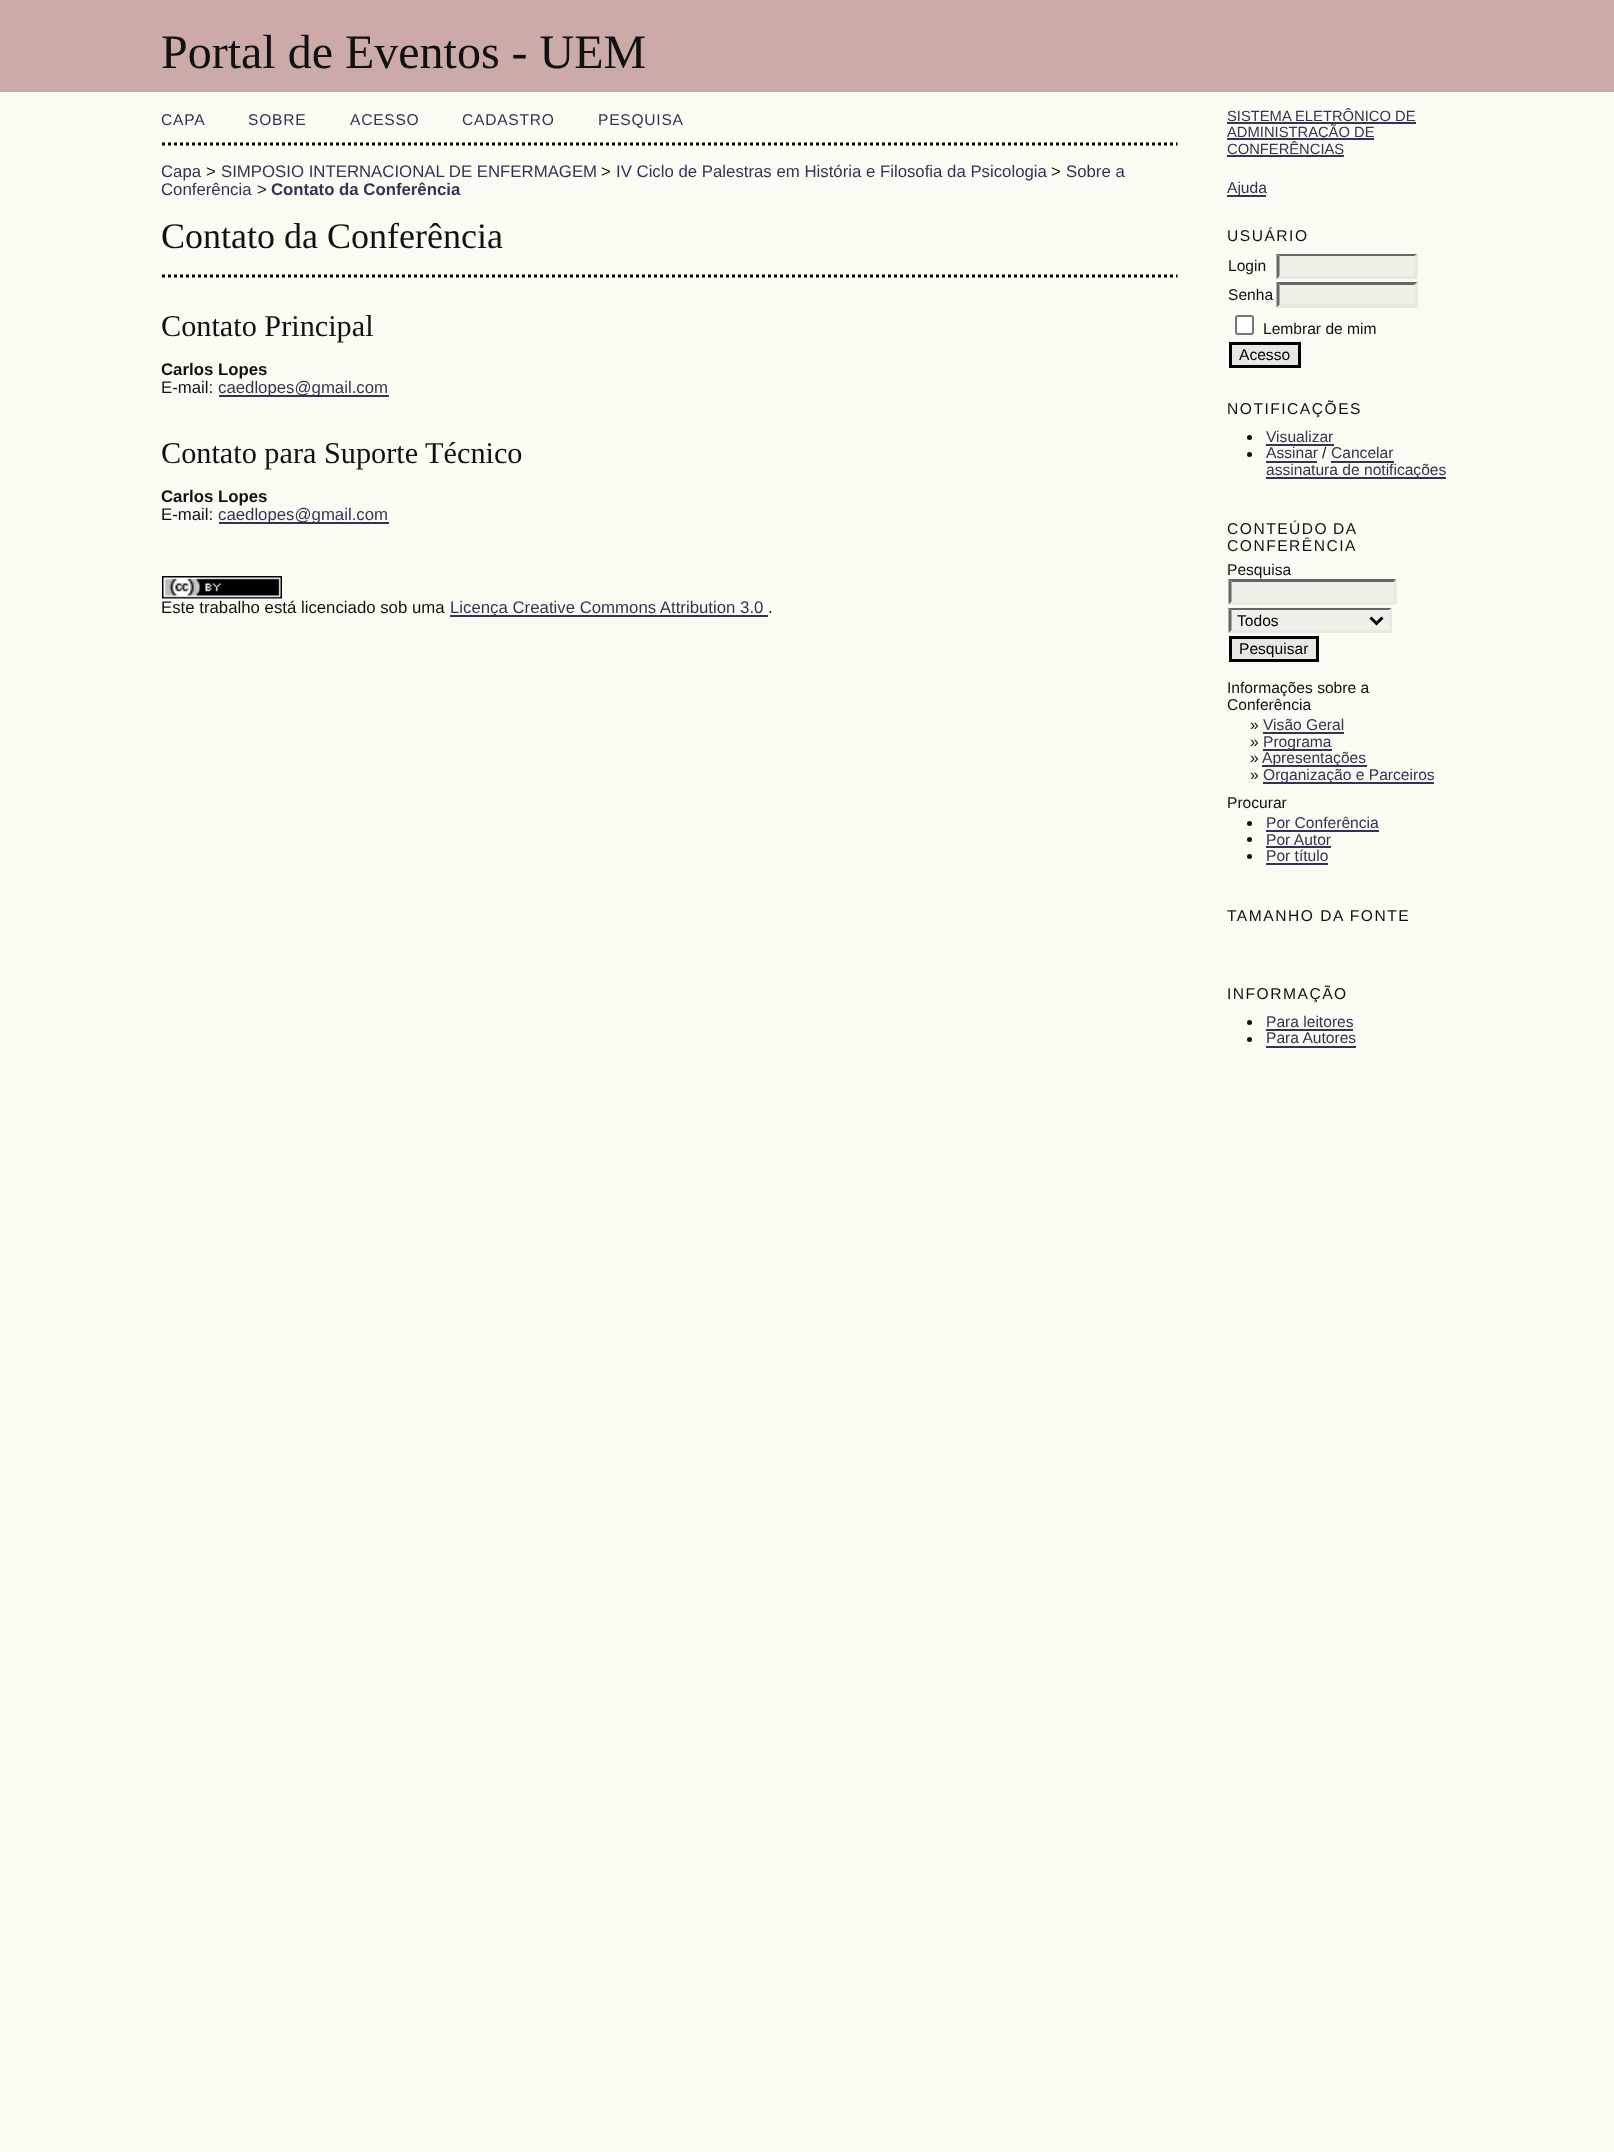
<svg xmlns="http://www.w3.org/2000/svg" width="1614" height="2152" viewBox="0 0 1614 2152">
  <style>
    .t1 { font: 48px Liberation Serif; fill: #111; }
    .t2 { font: 15.6px Liberation Sans; letter-spacing: 0.75px; fill: #335; }
    .t3 { font: 16.8px Liberation Sans; fill: #335; }
    .t4 { font: 16.8px Liberation Sans; fill: #111; }
    .t5 { font: bold 16.8px Liberation Sans; fill: #335; }
    .t6 { font: 36px Liberation Serif; fill: #111; }
    .t7 { font: 30.25px Liberation Serif; fill: #111; }
    .t8 { font: bold 16.8px Liberation Sans; fill: #111; }
    .t9 { font: 14.75px Liberation Sans; fill: #335; }
    .t10 { font: 15.6px Liberation Sans; fill: #335; }
    .t11 { font: 15.6px Liberation Sans; letter-spacing: 1.5px; fill: #111; }
    .t12 { font: 15.6px Liberation Sans; fill: #111; }
    .t13 { font: 15.6px Liberation Sans; fill: #000; }
  </style>
  <rect width="100%" height="100%" fill="#fbfbf3"/>
  <rect x="0" y="0" width="1614" height="92" fill="#caa"/>
  <text x="161" y="68" class="t1">Portal de Eventos - UEM</text>
  <path d="M162 144H1177.5" fill="none" stroke="#000" stroke-width="3" stroke-dasharray="3 3"/>
  <text x="161" y="125" class="t2">CAPA</text>
  <text x="248" y="125" class="t2">SOBRE</text>
  <text x="350" y="125" class="t2">ACESSO</text>
  <text x="462" y="125" class="t2">CADASTRO</text>
  <text x="598" y="125" class="t2">PESQUISA</text>
  <text x="161" y="177" class="t3">Capa</text>
  <text x="206" y="177" class="t4">&gt;</text>
  <text x="221" y="177" class="t3">SIMPOSIO INTERNACIONAL DE ENFERMAGEM</text>
  <text x="601" y="177" class="t4">&gt;</text>
  <text x="616" y="177" class="t3">IV Ciclo de Palestras em História e Filosofia da Psicologia</text>
  <text x="1051" y="177" class="t4">&gt;</text>
  <text x="1066" y="177" class="t3">Sobre a</text>
  <text x="161" y="195" class="t3">Conferência</text>
  <text x="257" y="195" class="t4">&gt;</text>
  <text x="271" y="195" class="t5">Contato da Conferência</text>
  <text x="161" y="248" class="t6">Contato da Conferência</text>
  <path d="M162 276H1177.5" fill="none" stroke="#000" stroke-width="3" stroke-dasharray="3 3"/>
  <text x="161" y="336" class="t7">Contato Principal</text>
  <text x="161" y="375" class="t8">Carlos Lopes</text>
  <text x="161" y="393" class="t4">E-mail:</text>
  <rect x="219" y="395" width="170" height="2" fill="#335"/>
  <text x="218" y="393" class="t3">caedlopes@gmail.com</text>
  <text x="161" y="463" class="t7">Contato para Suporte Técnico</text>
  <text x="161" y="502" class="t8">Carlos Lopes</text>
  <text x="161" y="520" class="t4">E-mail:</text>
  <rect x="219" y="522" width="170" height="2" fill="#335"/>
  <text x="218" y="520" class="t3">caedlopes@gmail.com</text>
  <image x="162" y="576" width="120" height="23" href="images/1.png"/>
  <text x="161" y="613" class="t4">Este trabalho está licenciado sob uma</text>
  <rect x="450" y="615" width="318" height="2" fill="#335"/>
  <text x="450" y="613" class="t3">Licença Creative Commons Attribution 3.0</text>
  <text x="768" y="613" class="t4">.</text>
  <text x="1227" y="121" class="t9">SISTEMA ELETRÔNICO DE</text>
  <rect x="1227" y="122" width="189" height="2" fill="#335"/>
  <rect x="1227" y="138" width="147" height="2" fill="#335"/>
  <text x="1227" y="137" class="t9">ADMINISTRAÇÃO DE</text>
  <text x="1227" y="154" class="t9">CONFERÊNCIAS</text>
  <rect x="1227" y="155" width="117" height="2" fill="#335"/>
  <rect x="1227" y="195" width="39" height="2" fill="#335"/>
  <text x="1227" y="193" class="t10">Ajuda</text>
  <text x="1227" y="241" class="t11">USUÁRIO</text>
  <text x="1228" y="271" class="t12">Login</text>
  <rect x="1277" y="254" width="141" height="25" fill="#f0f0e8"/>
  <path d="M1276 254H1418L1414 256H1280Z" fill="#666"/>
  <path d="M1417.5 253.5V279L1414.5 276V256.5Z" fill="#e8e8e1"/>
  <path d="M1418 279H1276L1280 276H1414Z" fill="#e8e8e1"/>
  <path d="M1276.5 279V253.5L1279.5 256.5V276Z" fill="#666"/>
  <text x="1228" y="300" class="t12">Senha</text>
  <rect x="1277" y="282" width="141" height="26" fill="#f0f0e8"/>
  <path d="M1276 282H1418L1414 285H1280Z" fill="#666"/>
  <path d="M1417.5 282V307.5L1414.5 304.5V285Z" fill="#e8e8e1"/>
  <path d="M1418 308H1276L1280 304H1414Z" fill="#e8e8e1"/>
  <path d="M1276.5 307.5V282L1279.5 285V304.5Z" fill="#666"/>
  <rect x="1236" y="316" width="17" height="18" rx="2" fill="#fff" stroke="#767676" stroke-width="2"/>
  <text x="1263" y="334" class="t12">Lembrar de mim</text>
  <rect x="1230.5" y="343.5" width="69" height="23" fill="#e8e8e1" stroke="#000" stroke-width="3"/>
  <text x="1239" y="360" class="t13">Acesso</text>
  <text x="1227" y="414" class="t11">NOTIFICAÇÕES</text>
  <circle cx="1249.5" cy="437.5" r="2.5" fill="#111"/>
  <text x="1266" y="442" class="t10">Visualizar</text>
  <rect x="1266" y="444" width="68" height="2" fill="#335"/>
  <circle cx="1249.5" cy="454.5" r="2.5" fill="#111"/>
  <text x="1266" y="458" class="t10">Assinar</text>
  <rect x="1266" y="461" width="51" height="2" fill="#335"/>
  <text x="1322" y="458" class="t12">/</text>
  <text x="1331" y="458" class="t10">Cancelar</text>
  <rect x="1266" y="477" width="180" height="2" fill="#335"/>
  <text x="1266" y="475" class="t10">assinatura de notificações</text>
  <rect x="1331" y="461" width="63" height="2" fill="#335"/>
  <text x="1227" y="534" word-spacing="-1" class="t11">CONTEÚDO DA</text>
  <text x="1227" y="551" class="t11">CONFERÊNCIA</text>
  <text x="1227" y="575" class="t12">Pesquisa</text>
  <rect x="1229" y="579" width="168" height="26" fill="#f0f0e8"/>
  <path d="M1228 579H1396L1394 582H1232Z" fill="#666"/>
  <path d="M1396.5 579V604.5L1393.5 601.5V582Z" fill="#e8e8e1"/>
  <path d="M1396 604H1228L1232 602H1394Z" fill="#e8e8e1"/>
  <path d="M1228.5 604.5V579L1231.5 582V601.5Z" fill="#666"/>
  <rect x="1229" y="608" width="163" height="25" fill="#f0f0e8"/>
  <path d="M1228 608H1392L1389 610H1232Z" fill="#666"/>
  <path d="M1392 607.5V633L1389 630V610.5Z" fill="#e8e8e1"/>
  <path d="M1392 633H1228L1232 630H1389Z" fill="#e8e8e1"/>
  <path d="M1228.5 633V607.5L1231.5 610.5V630Z" fill="#666"/>
  <path d="M1370.5 617.5L1376.5 623.5L1382.5 617.5" fill="none" stroke="#000" stroke-width="3"/>
  <text x="1237" y="626" class="t13">Todos</text>
  <rect x="1230.5" y="637.5" width="87" height="23" fill="#e8e8e1" stroke="#000" stroke-width="3"/>
  <text x="1239" y="654" class="t13">Pesquisar</text>
  <text x="1227" y="693" class="t12">Informações sobre a</text>
  <text x="1227" y="710" class="t12">Conferência</text>
  <text x="1250" y="730" class="t12">»</text>
  <text x="1263" y="730" class="t10">Visão Geral</text>
  <rect x="1263" y="732" width="81" height="2" fill="#335"/>
  <text x="1250" y="747" class="t12">»</text>
  <rect x="1263" y="749" width="69" height="2" fill="#335"/>
  <text x="1263" y="747" class="t10">Programa</text>
  <text x="1250" y="763" class="t12">»</text>
  <rect x="1262" y="765" width="105" height="2" fill="#335"/>
  <text x="1262" y="763" class="t10">Apresentações</text>
  <text x="1250" y="780" class="t12">»</text>
  <rect x="1263" y="782" width="171" height="2" fill="#335"/>
  <text x="1263" y="780" class="t10">Organização e Parceiros</text>
  <text x="1227" y="808" class="t12">Procurar</text>
  <circle cx="1249.5" cy="823.5" r="2.5" fill="#111"/>
  <text x="1266" y="828" class="t10">Por Conferência</text>
  <rect x="1266" y="830" width="113" height="2" fill="#335"/>
  <circle cx="1249.5" cy="839.5" r="2.5" fill="#111"/>
  <text x="1266" y="845" class="t10">Por Autor</text>
  <rect x="1266" y="846" width="65" height="2" fill="#335"/>
  <circle cx="1249.5" cy="856.5" r="2.5" fill="#111"/>
  <text x="1266" y="861" class="t10">Por título</text>
  <rect x="1266" y="863" width="62" height="2" fill="#335"/>
  <text x="1227" y="921" class="t11">TAMANHO DA FONTE</text>
  <text x="1227" y="999" class="t11">INFORMAÇÃO</text>
  <circle cx="1249.5" cy="1022.5" r="2.5" fill="#111"/>
  <text x="1266" y="1027" class="t10">Para leitores</text>
  <rect x="1266" y="1029" width="87" height="2" fill="#335"/>
  <circle cx="1249.5" cy="1039.5" r="2.5" fill="#111"/>
  <text x="1266" y="1043" class="t10">Para Autores</text>
  <rect x="1266" y="1046" width="90" height="2" fill="#335"/>
</svg>
